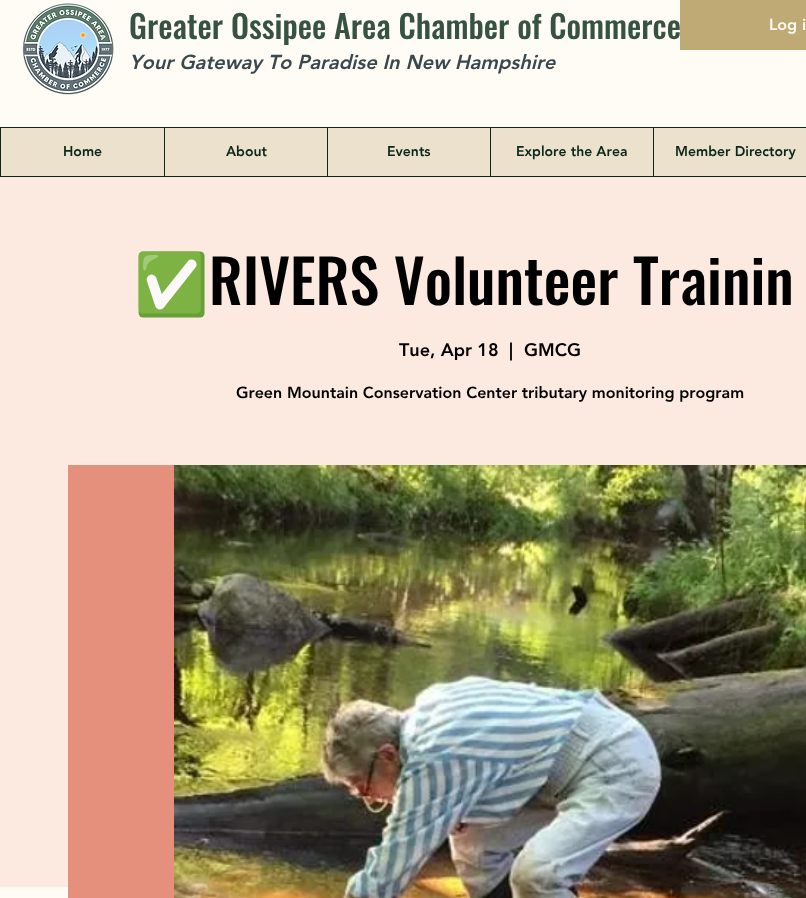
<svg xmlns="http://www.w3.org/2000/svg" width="806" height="898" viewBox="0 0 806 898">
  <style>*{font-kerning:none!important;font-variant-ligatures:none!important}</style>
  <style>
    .t1 { font: 500 32px Oswald; fill: #355243; }
    .t2 { font: italic 900 20px 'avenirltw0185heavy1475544'; fill: #39484d; }
    .t3 { font: 900 16px 'avenirltw0185heavy1475544'; fill: #fffcf6; }
    .t4 { font: 900 14px 'avenirltw0185heavy1475544'; fill: #0b2719; }
    .t5 { font: 60px Noto Color Emoji; fill: #000; }
    .t6 { font: 500 60px Oswald; fill: #000; }
    .t7 { font: 900 18px 'avenirltw0185heavy1475544'; fill: #000; }
    .t8 { font: 900 16px 'avenirltw0185heavy1475544'; fill: #000; }
  </style>
  <rect width="100%" height="100%" fill="#fffcf6"/>
  <image x="22" y="3" width="92" height="92" href="images/1.png"/>
  <text x="129" y="39" class="t1">Greater Ossipee Area Chamber of Commerce</text>
  <text x="129" y="69" class="t2">Your Gateway To</text>
  <text x="297" y="69" class="t2">Paradise In New Hampshire</text>
  <rect x="680" y="0" width="126" height="50" fill="#bfa975"/>
  <text x="769" y="30" class="t3">Log i</text>
  <rect x="0.5" y="127.5" width="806" height="49" fill="#ebe1cd" stroke="#0b2719"/>
  <text x="63" y="156" class="t4">Home</text>
  <rect x="164" y="128" width="1" height="48" fill="#0b2719"/>
  <text x="226" y="156" class="t4">About</text>
  <rect x="327" y="128" width="1" height="48" fill="#0b2719"/>
  <text x="387" y="156" class="t4">Events</text>
  <rect x="490" y="128" width="1" height="48" fill="#0b2719"/>
  <text x="516" y="156" class="t4">Explore the Area</text>
  <rect x="653" y="128" width="1" height="48" fill="#0b2719"/>
  <text x="675" y="156" class="t4">Member Directory</text>
  <rect x="0" y="177" width="806" height="710" fill="#fceae0"/>
  <text x="134" y="305" class="t5">✅</text>
  <text x="209" y="305" class="t6">RIVERS Volunteer Trainin</text>
  <text x="399" y="356" class="t7">Tue, Apr 18</text>
  <text x="509" y="356" class="t7">|</text>
  <text x="524" y="356" class="t7">GMCG</text>
  <text x="236" y="398" class="t8">Green Mountain Conservation Center tributary monitoring program</text>
  <rect x="68" y="465" width="106" height="433" fill="#e5907d"/>
  <image x="174" y="465" width="632" height="433" href="images/2.png"/>
</svg>
